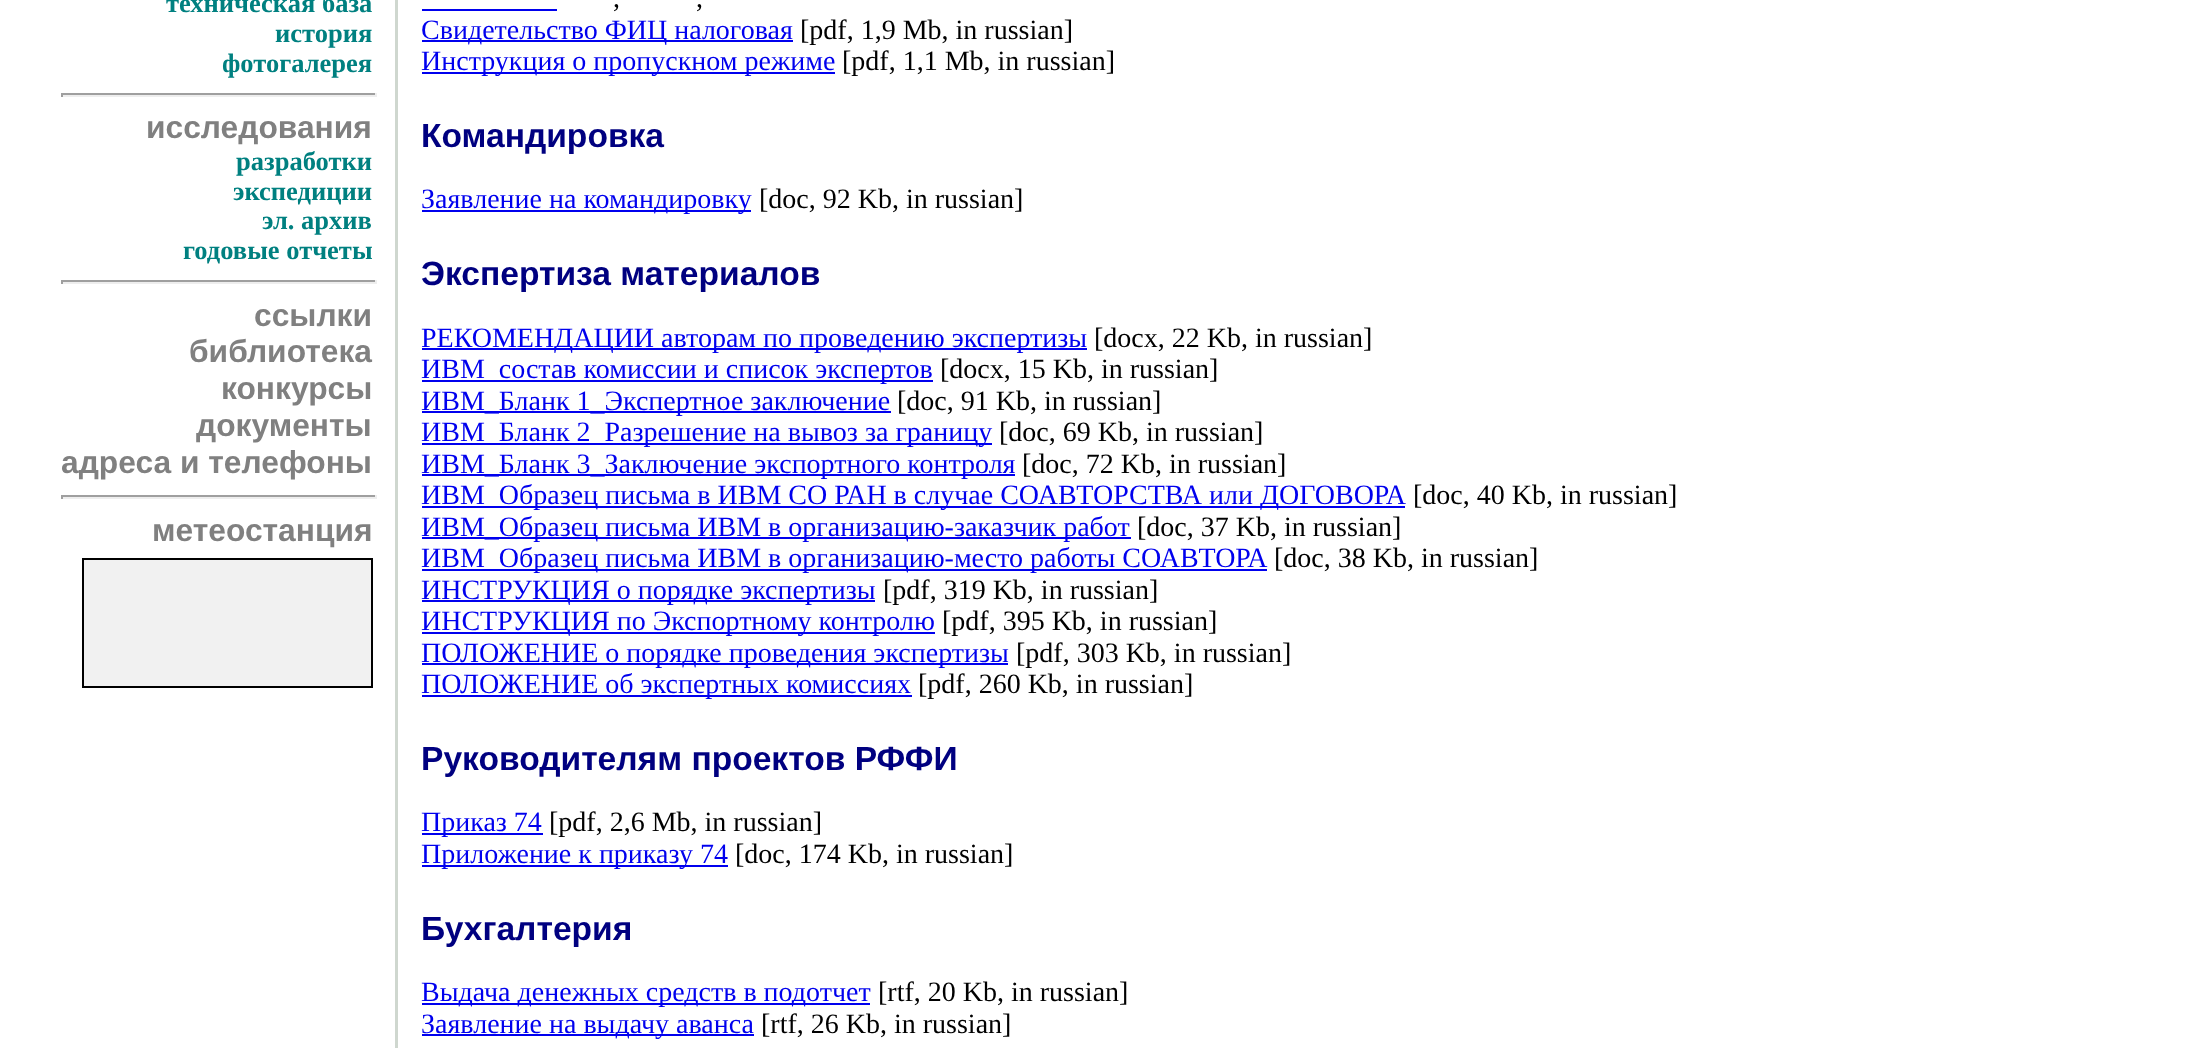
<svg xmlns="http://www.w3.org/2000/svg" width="2212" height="1048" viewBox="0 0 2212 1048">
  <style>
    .t1 { font: bold 26.5px Liberation Serif; fill: #008080; }
    .t2 { font: bold 31.75px Liberation Sans; fill: #808080; }
    .t3 { font: 28px Liberation Serif; fill: #000; }
    .t4 { font: 28px Liberation Serif; fill: #00e; }
    .t5 { font: bold 33.6px Liberation Sans; fill: #000080; }
  </style>
  <rect width="100%" height="100%" fill="#fff"/>
  <text x="166" y="12" class="t1">техническая база</text>
  <text x="275" y="42" class="t1">история</text>
  <text x="222" y="72" class="t1">фотогалерея</text>
  <rect x="61" y="93" width="315" height="2" fill="#9f9f9f"/>
  <rect x="375" y="93" width="2" height="4" fill="#eee"/>
  <rect x="61" y="95" width="315" height="2" fill="#eee"/>
  <rect x="61" y="93" width="2" height="4" fill="#9f9f9f"/>
  <text x="146" y="138" class="t2">исследования</text>
  <text x="236" y="170" class="t1">разработки</text>
  <text x="233" y="200" class="t1">экспедиции</text>
  <text x="262" y="229" class="t1">эл. архив</text>
  <text x="183" y="259" class="t1">годовые отчеты</text>
  <rect x="61" y="280" width="315" height="2" fill="#9f9f9f"/>
  <rect x="375" y="280" width="2" height="4" fill="#eee"/>
  <rect x="61" y="282" width="315" height="2" fill="#eee"/>
  <rect x="61" y="280" width="2" height="4" fill="#9f9f9f"/>
  <text x="254" y="326" class="t2">ссылки</text>
  <text x="189" y="362" class="t2">библиотека</text>
  <text x="221" y="399" class="t2">конкурсы</text>
  <text x="196" y="436" class="t2">документы</text>
  <text x="61" y="473" class="t2">адреса и телефоны</text>
  <rect x="61" y="495" width="315" height="2" fill="#9f9f9f"/>
  <rect x="375" y="495" width="2" height="4" fill="#eee"/>
  <rect x="61" y="497" width="315" height="2" fill="#eee"/>
  <rect x="61" y="495" width="2" height="4" fill="#9f9f9f"/>
  <text x="152" y="541" class="t2">метеостанция</text>
  <rect x="83" y="559" width="289" height="128" fill="#f1f1f1" stroke="#000" stroke-width="2"/>
  <rect x="395" y="0" width="3" height="1048" fill="#cfd7cf"/>
  <rect x="422" y="9" width="135" height="2" fill="#00e"/>
  <text x="613" y="7" class="t3">,</text>
  <text x="696" y="7" class="t3">,</text>
  <rect x="422" y="40" width="371" height="2" fill="#00e"/>
  <text x="421" y="39" class="t4">Свидетельство ФИЦ налоговая</text>
  <text x="800" y="39" class="t3">[pdf, 1,9 Mb, in russian]</text>
  <rect x="422" y="72" width="413" height="2" fill="#00e"/>
  <text x="421" y="70" class="t4">Инструкция о пропускном режиме</text>
  <text x="842" y="70" class="t3">[pdf, 1,1 Mb, in russian]</text>
  <text x="421" y="147" class="t5">Командировка</text>
  <rect x="422" y="210" width="329" height="2" fill="#00e"/>
  <text x="421" y="208" class="t4">Заявление на командировку</text>
  <text x="759" y="208" class="t3">[doc, 92 Kb, in russian]</text>
  <text x="421" y="285" class="t5">Экспертиза материалов</text>
  <rect x="422" y="348" width="665" height="2" fill="#00e"/>
  <text x="421" y="347" class="t4">РЕКОМЕНДАЦИИ авторам по проведению экспертизы</text>
  <text x="1094" y="347" class="t3">[docx, 22 Kb, in russian]</text>
  <rect x="422" y="380" width="511" height="2" fill="#00e"/>
  <text x="421" y="378" class="t4">ИВМ_состав комиссии и список экспертов</text>
  <text x="940" y="378" class="t3">[docx, 15 Kb, in russian]</text>
  <rect x="422" y="411" width="469" height="2" fill="#00e"/>
  <text x="421" y="410" class="t4">ИВМ_Бланк 1_Экспертное заключение</text>
  <text x="897" y="410" class="t3">[doc, 91 Kb, in russian]</text>
  <rect x="422" y="443" width="570" height="2" fill="#00e"/>
  <text x="421" y="441" class="t4">ИВМ_Бланк 2_Разрешение на вывоз за границу</text>
  <text x="999" y="441" class="t3">[doc, 69 Kb, in russian]</text>
  <rect x="422" y="474" width="593" height="2" fill="#00e"/>
  <text x="421" y="473" class="t4">ИВМ_Бланк 3_Заключение экспортного контроля</text>
  <text x="1022" y="473" class="t3">[doc, 72 Kb, in russian]</text>
  <rect x="422" y="506" width="983" height="2" fill="#00e"/>
  <text x="421" y="504" class="t4">ИВМ_Образец письма в ИВМ СО РАН в случае СОАВТОРСТВА или ДОГОВОРА</text>
  <text x="1413" y="504" class="t3">[doc, 40 Kb, in russian]</text>
  <rect x="422" y="537" width="709" height="2" fill="#00e"/>
  <text x="421" y="536" class="t4">ИВМ_Образец письма ИВМ в организацию-заказчик работ</text>
  <text x="1137" y="536" class="t3">[doc, 37 Kb, in russian]</text>
  <rect x="422" y="569" width="845" height="2" fill="#00e"/>
  <text x="421" y="567" class="t4">ИВМ_Образец письма ИВМ в организацию-место работы СОАВТОРА</text>
  <text x="1274" y="567" class="t3">[doc, 38 Kb, in russian]</text>
  <rect x="422" y="600" width="453" height="2" fill="#00e"/>
  <text x="421" y="599" class="t4">ИНСТРУКЦИЯ о порядке экспертизы</text>
  <text x="883" y="599" class="t3">[pdf, 319 Kb, in russian]</text>
  <rect x="422" y="632" width="513" height="2" fill="#00e"/>
  <text x="421" y="630" class="t4">ИНСТРУКЦИЯ по Экспортному контролю</text>
  <text x="942" y="630" class="t3">[pdf, 395 Kb, in russian]</text>
  <rect x="422" y="663" width="586" height="2" fill="#00e"/>
  <text x="421" y="662" class="t4">ПОЛОЖЕНИЕ о порядке проведения экспертизы</text>
  <text x="1016" y="662" class="t3">[pdf, 303 Kb, in russian]</text>
  <rect x="422" y="695" width="490" height="2" fill="#00e"/>
  <text x="421" y="693" class="t4">ПОЛОЖЕНИЕ об экспертных комиссиях</text>
  <text x="918" y="693" class="t3">[pdf, 260 Kb, in russian]</text>
  <text x="421" y="770" class="t5">Руководителям проектов РФФИ</text>
  <rect x="422" y="833" width="121" height="2" fill="#00e"/>
  <text x="421" y="831" class="t4">Приказ 74</text>
  <text x="549" y="831" class="t3">[pdf, 2,6 Mb, in russian]</text>
  <rect x="422" y="865" width="306" height="2" fill="#00e"/>
  <text x="421" y="863" class="t4">Приложение к приказу 74</text>
  <text x="735" y="863" class="t3">[doc, 174 Kb, in russian]</text>
  <text x="421" y="940" class="t5">Бухгалтерия</text>
  <rect x="422" y="1003" width="448" height="2" fill="#00e"/>
  <text x="421" y="1001" class="t4">Выдача денежных средств в подотчет</text>
  <text x="878" y="1001" class="t3">[rtf, 20 Kb, in russian]</text>
  <rect x="422" y="1034" width="332" height="2" fill="#00e"/>
  <text x="421" y="1033" class="t4">Заявление на выдачу аванса</text>
  <text x="761" y="1033" class="t3">[rtf, 26 Kb, in russian]</text>
</svg>
